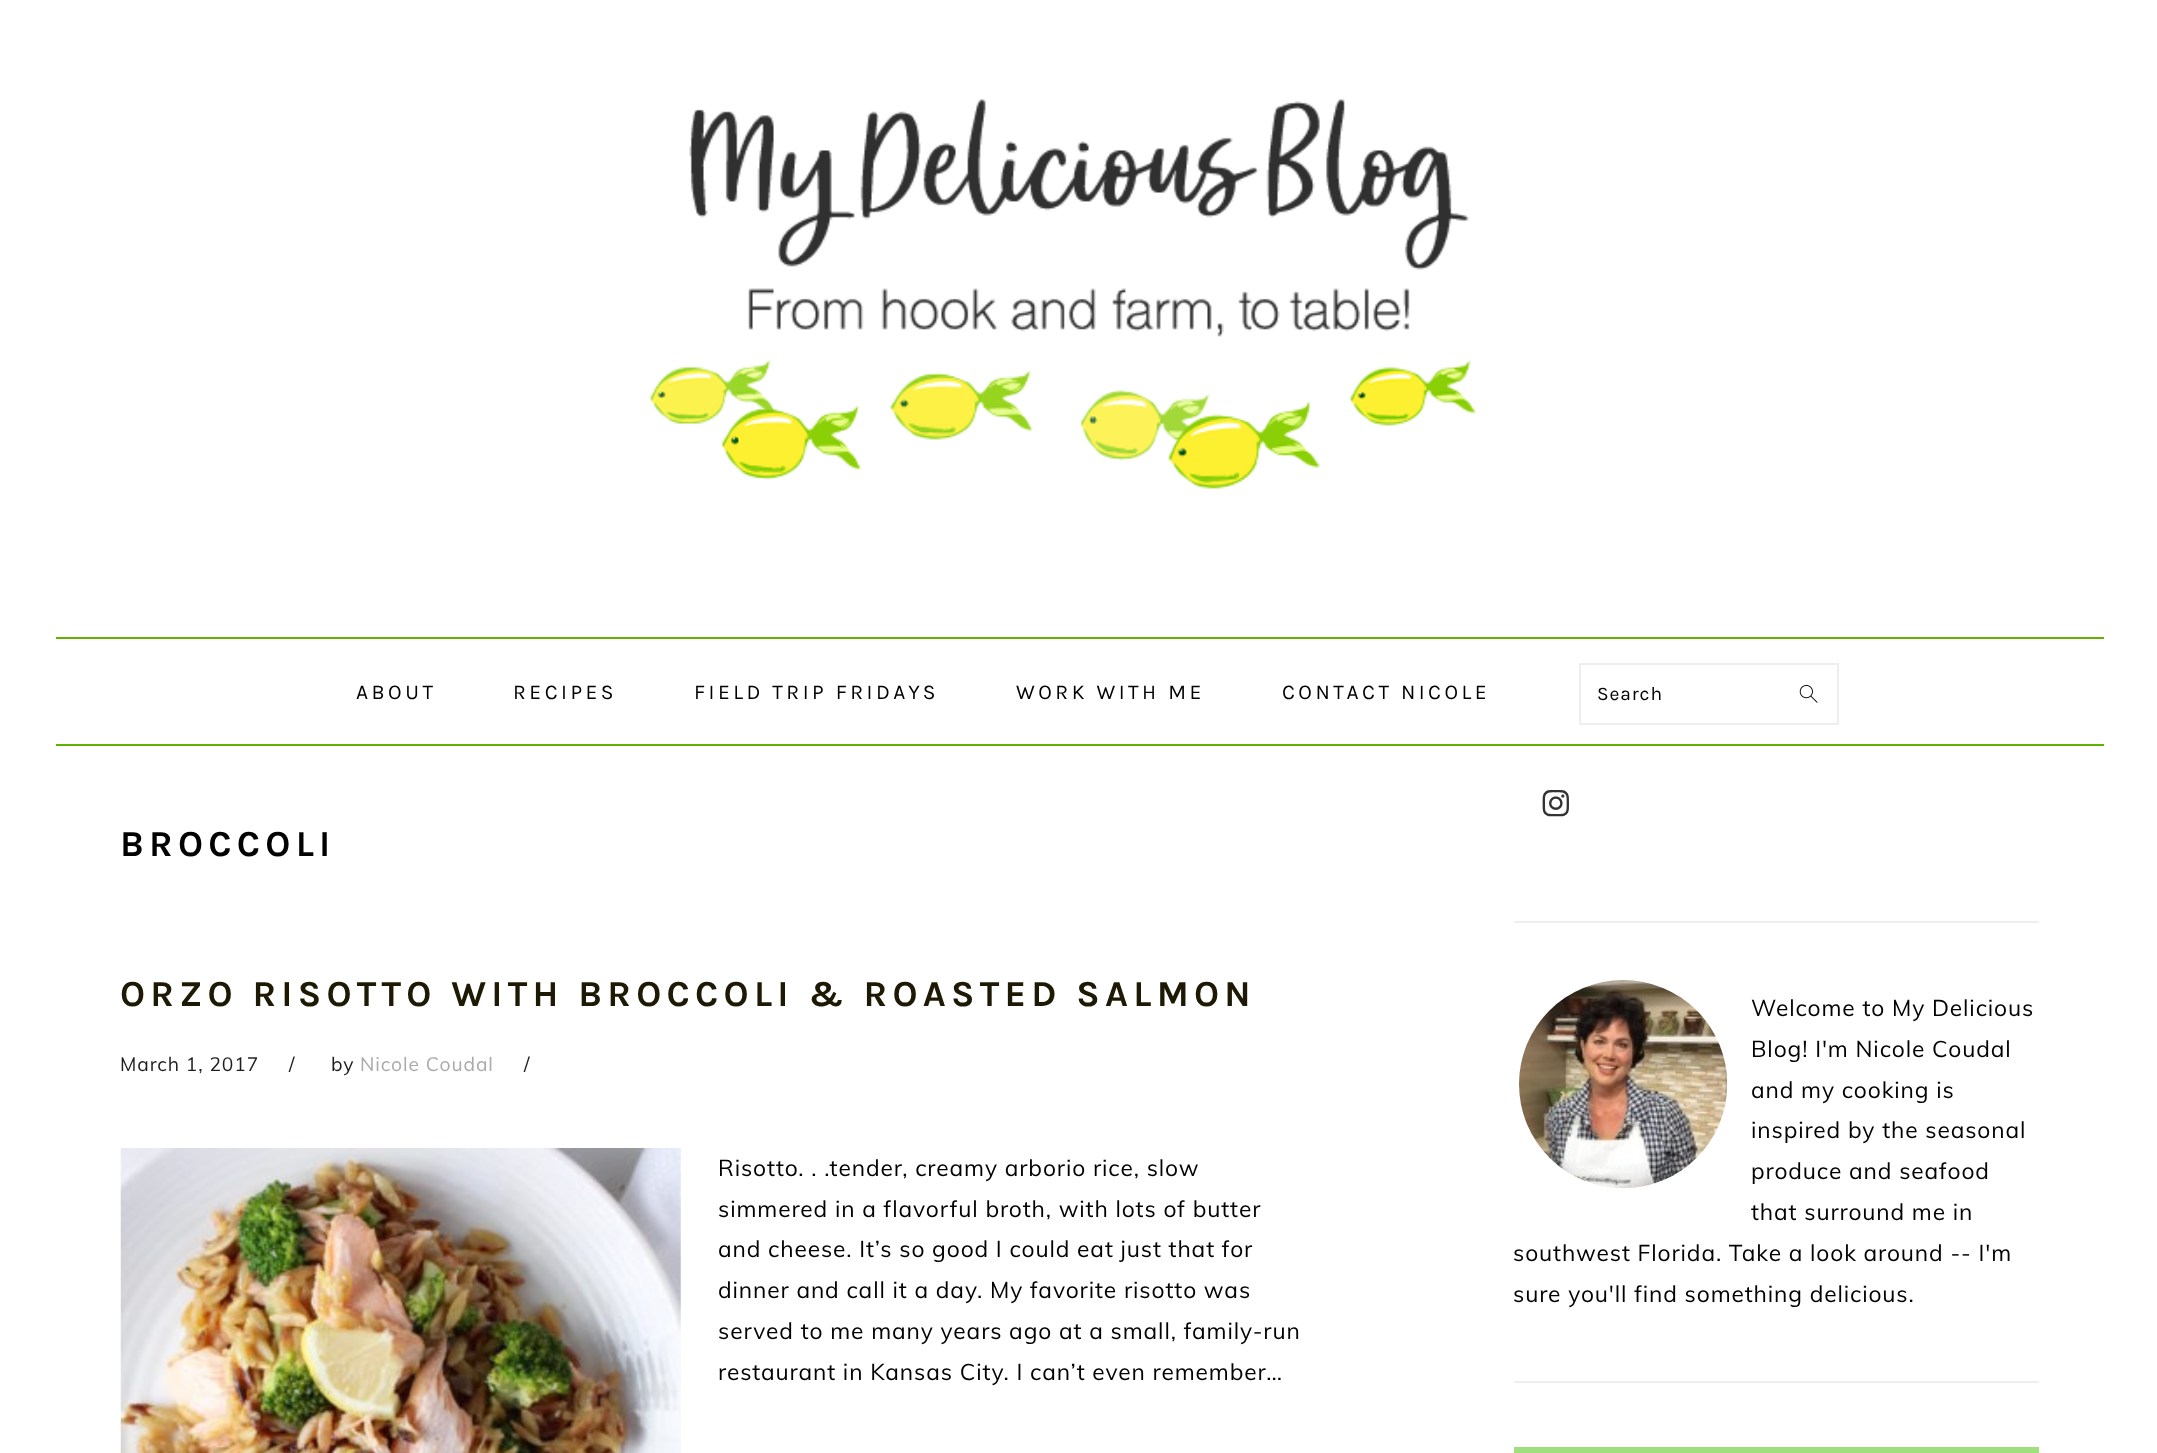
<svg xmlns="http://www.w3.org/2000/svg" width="2157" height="1453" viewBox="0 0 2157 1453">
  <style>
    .t1 { font: 21px Karla; letter-spacing: 3.5px; fill: #010101; }
    .t2 { font: 19.25px Karla; letter-spacing: 0.88px; fill: #010101; }
    .t3 { font: bold 36.75px Karla; letter-spacing: 5.25px; fill: #010101; }
    .t4 { font: bold 36.75px Karla; letter-spacing: 5.25px; fill: #1e1904; }
    .t5 { font: 19.25px Muli; letter-spacing: 0.88px; fill: #1e1e1e; }
    .t6 { font: 19.25px Muli; letter-spacing: 0.88px; fill: #aaa; }
    .t7 { font: 22.75px Muli; letter-spacing: 0.88px; fill: #010101; }
  </style>
  <rect width="100%" height="100%" fill="#fff"/>
  <image x="649" y="99" width="827" height="390" href="images/1.png"/>
  <rect x="56" y="637" width="2048" height="2" fill="#62b201"/>
  <rect x="56" y="744" width="2048" height="2" fill="#62b201"/>
  <text x="356" y="699" class="t1">ABOUT</text>
  <text x="513" y="699" class="t1">RECIPES</text>
  <text x="694" y="699" class="t1">FIELD TRIP FRIDAYS</text>
  <text x="1016" y="699" class="t1">WORK WITH ME</text>
  <text x="1282" y="699" class="t1">CONTACT NICOLE</text>
  <rect x="1580" y="664" width="258" height="60" fill="none" stroke="#eee" stroke-width="2"/>
  <image x="1799" y="685" width="19" height="18" href="images/2.png"/>
  <text x="1597" y="700" class="t2">Search</text>
  <text x="120" y="856" class="t3">BROCCOLI</text>
  <text x="120" y="1006" class="t4">ORZO RISOTTO WITH BROCCOLI &amp; ROASTED SALMON</text>
  <text x="120" y="1071" class="t5">March 1, 2017</text>
  <text x="289" y="1071" class="t5">/</text>
  <text x="331" y="1071" class="t5">by</text>
  <text x="360" y="1071" class="t6">Nicole Coudal</text>
  <text x="524" y="1071" class="t5">/</text>
  <image x="120" y="1148" width="561" height="305" href="images/3.png"/>
  <text x="718" y="1176" class="t7">Risotto. . .tender, creamy arborio rice, slow</text>
  <text x="718" y="1217" class="t7">simmered in a flavorful broth, with lots of butter</text>
  <text x="718" y="1257" class="t7">and cheese. It’s so good I could eat just that for</text>
  <text x="718" y="1298" class="t7">dinner and call it a day. My favorite risotto was</text>
  <text x="718" y="1339" class="t7">served to me many years ago at a small, family-run</text>
  <text x="718" y="1380" class="t7">restaurant in Kansas City. I can’t even remember…</text>
  <rect x="1514" y="921" width="525" height="2" fill="#eee"/>
  <image x="1542" y="790" width="27" height="27" href="images/4.png"/>
  <rect x="1514" y="1381" width="525" height="2" fill="#eee"/>
  <image x="1519" y="980" width="209" height="208" href="images/5.png"/>
  <text x="1751" y="1016" class="t7">Welcome to My Delicious</text>
  <text x="1751" y="1057" class="t7">Blog! I'm Nicole Coudal</text>
  <text x="1751" y="1098" class="t7">and my cooking is</text>
  <text x="1751" y="1138" class="t7">inspired by the seasonal</text>
  <text x="1751" y="1179" class="t7">produce and seafood</text>
  <text x="1751" y="1220" class="t7">that surround me in</text>
  <text x="1513" y="1261" class="t7">southwest Florida. Take a look around -- I'm</text>
  <text x="1513" y="1302" class="t7">sure you'll find something delicious.</text>
  <rect x="1514" y="1447" width="525" height="6" fill="#9ee07d"/>
</svg>
